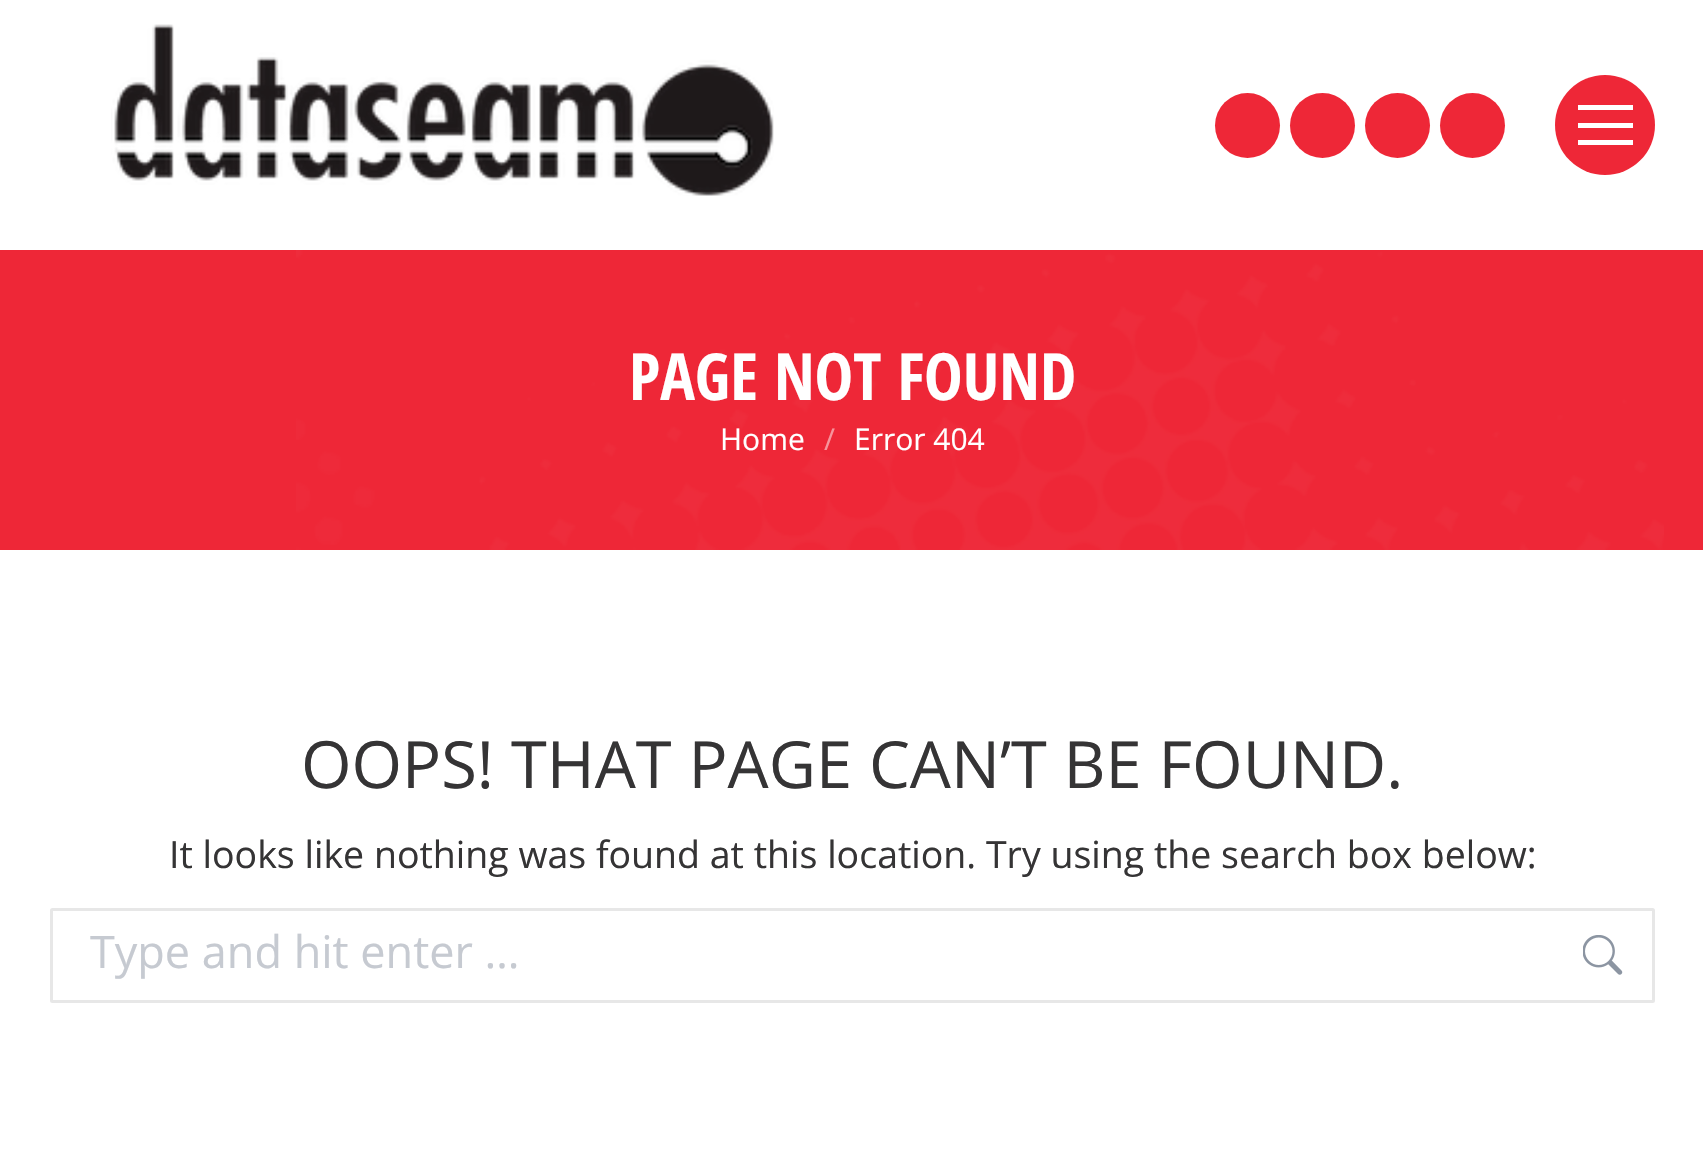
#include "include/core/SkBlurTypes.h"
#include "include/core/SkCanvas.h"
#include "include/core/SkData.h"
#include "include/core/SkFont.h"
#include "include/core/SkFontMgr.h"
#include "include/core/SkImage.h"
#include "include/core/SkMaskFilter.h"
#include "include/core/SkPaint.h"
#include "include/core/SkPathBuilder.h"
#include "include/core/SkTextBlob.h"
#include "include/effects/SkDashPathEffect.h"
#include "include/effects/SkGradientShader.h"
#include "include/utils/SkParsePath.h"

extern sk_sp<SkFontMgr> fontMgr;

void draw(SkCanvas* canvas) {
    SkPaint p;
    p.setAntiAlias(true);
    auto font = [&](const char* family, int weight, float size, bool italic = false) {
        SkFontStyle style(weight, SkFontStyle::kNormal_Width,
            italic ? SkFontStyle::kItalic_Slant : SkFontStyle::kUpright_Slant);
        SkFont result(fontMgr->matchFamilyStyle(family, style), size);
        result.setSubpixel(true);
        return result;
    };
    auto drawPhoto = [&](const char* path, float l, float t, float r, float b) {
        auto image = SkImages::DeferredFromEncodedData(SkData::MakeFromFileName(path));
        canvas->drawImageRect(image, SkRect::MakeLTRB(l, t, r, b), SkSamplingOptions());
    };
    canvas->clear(0xFFFFFFFF);
    drawPhoto("media/1.png", 111, 24, 774, 196);
    p.setColor(0xFFEE2737);
    canvas->drawCircle(1247.5f, 125.5f, 32.5f, p);
    canvas->drawCircle(1322.5f, 125.5f, 32.5f, p);
    canvas->drawCircle(1397.5f, 125.5f, 32.5f, p);
    canvas->drawCircle(1472.5f, 125.5f, 32.5f, p);
    canvas->drawCircle(1605, 125, 50, p);
    {
        const struct { float l, t, r, b; SkColor color; } items[] = {
            {1578, 105, 1633, 110, 0xFFFFFFFF},
            {1578, 123, 1633, 128, 0xFFFFFFFF},
            {1578, 140, 1633, 145, 0xFFFFFFFF},
            {0, 250, 1703, 550, 0xFFEE2737},
        };
        for (auto [l, t, r, b, color] : items) {
            p.setColor(color);
            canvas->drawRect(SkRect::MakeLTRB(l, t, r, b), p);
        }
    }
    drawPhoto("media/2.png", 296, 250, 1664, 550);
    auto font1 = font("Open Sans Condensed", 700, 65);
    p.setColor(0xFFFFFFFF);
    canvas->drawString("PAGE NOT FOUND", 629, 400, font1, p);
    auto font2 = font("Open Sans", 400, 30);
    canvas->drawString("Home", 720, 450, font2, p);
    p.setColor(0xFFF7939B);
    canvas->drawString("/", 824, 450, font2, p);
    p.setColor(0xFFFFFFFF);
    canvas->drawString("Error 404", 854, 450, font2, p);
    auto font3 = font("Open Sans", 400, 65);
    p.setColor(0xFF353435);
    canvas->drawString("OOPS! THAT PAGE CAN’T BE FOUND.", 301, 788, font3, p);
    auto font4 = font("Open Sans", 400, 37.5f);
    canvas->drawString("It looks like nothing was found at this location. Try using the search box below:", 169, 868, font4, p);
    p.setStyle(SkPaint::kStroke_Style);
    p.setStrokeWidth(3);
    p.setColor(0xFFE7E7E7);
    canvas->drawRoundRect(SkRect::MakeLTRB(51.5f, 909.5f, 1653.5f, 1001.5f), 1, 1, p);
    auto font5 = font("Open Sans", 400, 45);
    p.setStyle(SkPaint::kFill_Style);
    p.setColor(0xFFC6CAD1);
    canvas->drawString("Type and hit enter …", 90, 968, font5, p);
    drawPhoto("media/3.png", 1583, 935, 1623, 975);
}
